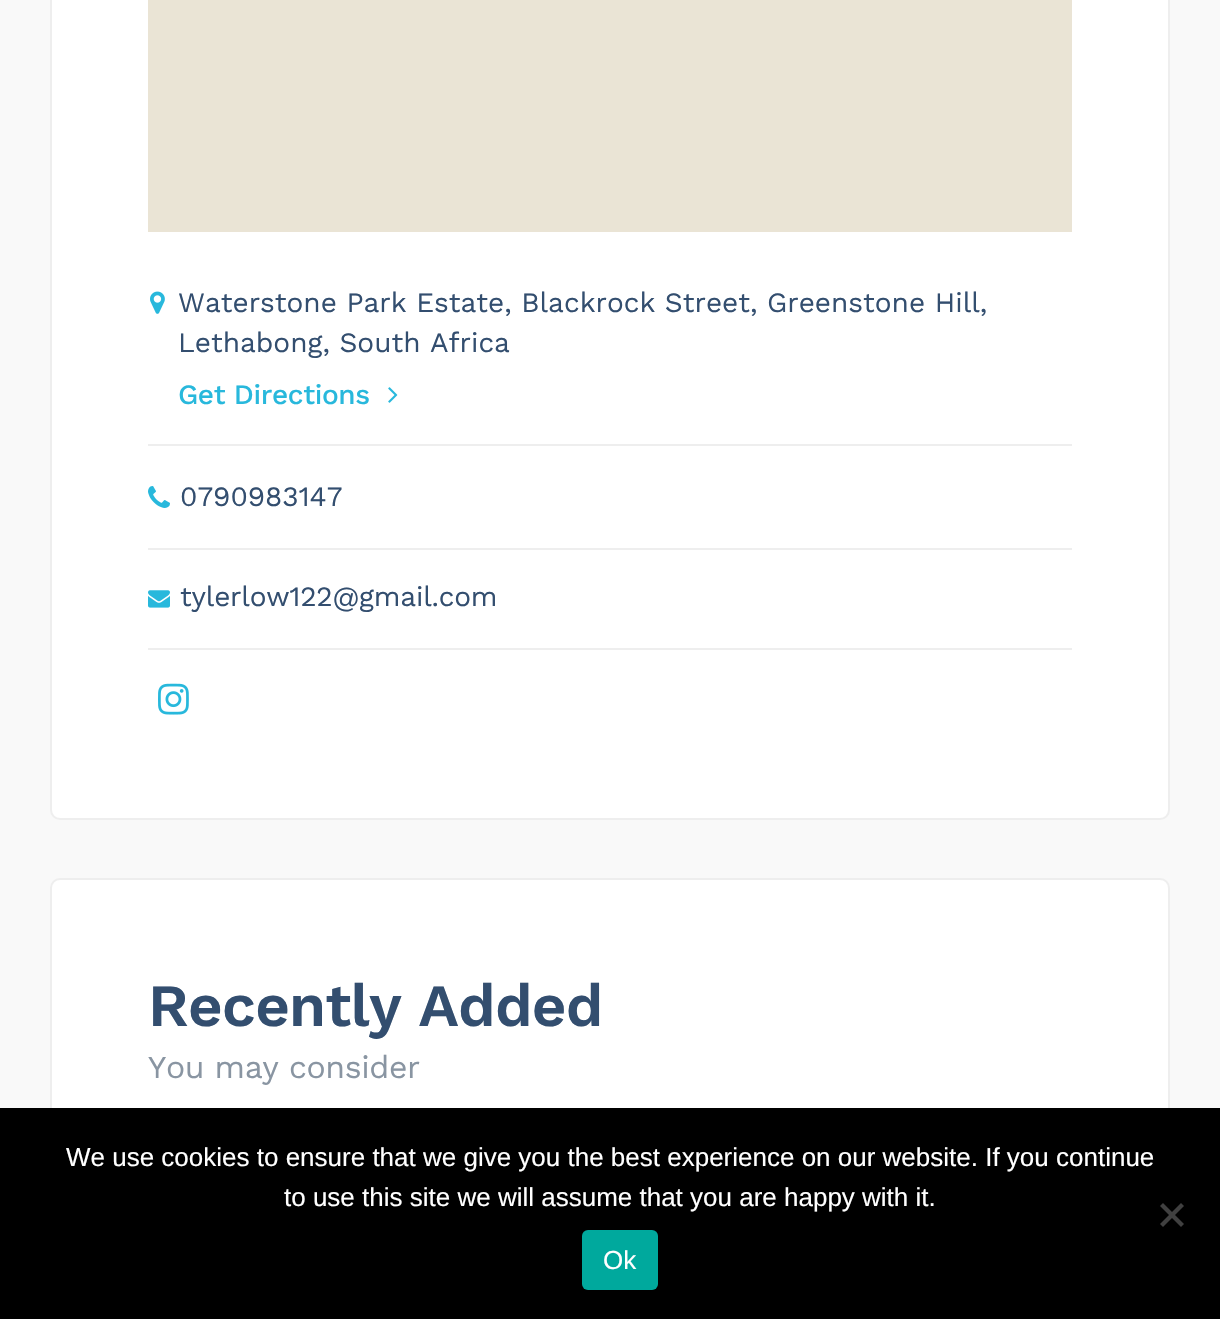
#include "include/core/SkBlurTypes.h"
#include "include/core/SkCanvas.h"
#include "include/core/SkData.h"
#include "include/core/SkFont.h"
#include "include/core/SkFontMgr.h"
#include "include/core/SkImage.h"
#include "include/core/SkMaskFilter.h"
#include "include/core/SkPaint.h"
#include "include/core/SkPathBuilder.h"
#include "include/core/SkTextBlob.h"
#include "include/effects/SkDashPathEffect.h"
#include "include/effects/SkGradientShader.h"
#include "include/utils/SkParsePath.h"

extern sk_sp<SkFontMgr> fontMgr;

void draw(SkCanvas* canvas) {
    SkPaint p;
    p.setAntiAlias(true);
    auto font = [&](const char* family, int weight, float size, bool italic = false) {
        SkFontStyle style(weight, SkFontStyle::kNormal_Width,
            italic ? SkFontStyle::kItalic_Slant : SkFontStyle::kUpright_Slant);
        SkFont result(fontMgr->matchFamilyStyle(family, style), size);
        result.setSubpixel(true);
        return result;
    };
    auto drawTracked = [&](const char* s, float x, float y, const SkFont& font, const SkPaint& ink, float letter, float word) {
        std::vector<SkGlyphID> glyphs(font.countText(s, strlen(s), SkTextEncoding::kUTF8));
        std::vector<float> xs(glyphs.size());
        font.textToGlyphs(s, strlen(s), SkTextEncoding::kUTF8, glyphs);
        font.getXPos(glyphs, xs, x);
        float extra = 0;
        for (size_t i = 0; i < glyphs.size(); i++) {
            xs[i] += extra;
            extra += letter + word * (glyphs[i] == font.unicharToGlyph(' '));
        }
        canvas->drawTextBlob(SkTextBlob::MakeFromPosHGlyphs(glyphs, xs, y, font), 0, 0, ink);
    };
    auto drawPhoto = [&](const char* path, float l, float t, float r, float b) {
        auto image = SkImages::DeferredFromEncodedData(SkData::MakeFromFileName(path));
        canvas->drawImageRect(image, SkRect::MakeLTRB(l, t, r, b), SkSamplingOptions());
    };
    canvas->clear(0xFFF9F9F9);
    p.setColor(0xFFFFFFFF);
    canvas->drawRoundRect(SkRect::MakeLTRB(51, -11, 1169, 819), 9, 9, p);
    p.setStyle(SkPaint::kStroke_Style);
    p.setStrokeWidth(2);
    p.setColor(0xFFEEEEEE);
    canvas->drawRoundRect(SkRect::MakeLTRB(51, -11, 1169, 819), 9, 9, p);
    p.setStyle(SkPaint::kFill_Style);
    p.setColor(0xFFEAE4D5);
    canvas->drawRect(SkRect::MakeLTRB(148, 0, 1072, 232), p);
    p.setColor(0xFFEEEEEE);
    canvas->drawRect(SkRect::MakeLTRB(148, 444, 1072, 446), p);
    drawPhoto("media/1.png", 150, 291, 165, 314);
    auto font1 = font("Work Sans", 400, 28);
    p.setColor(0xFF334E6F);
    canvas->drawString("Waterstone Park Estate, Blackrock Street, Greenstone Hill,", 178, 312, font1, p);
    canvas->drawString("Lethabong, South Africa", 178, 352, font1, p);
    auto font2 = font("Work Sans", 500, 28);
    p.setColor(0xFF28B8DC);
    drawTracked("Get Directions", 178, 404, font2, p, -0.4f, 0);
    drawPhoto("media/2.png", 388, 387, 398, 403);
    p.setColor(0xFFEEEEEE);
    canvas->drawRect(SkRect::MakeLTRB(148, 548, 1072, 550), p);
    drawPhoto("media/3.png", 148, 486, 170, 508);
    p.setColor(0xFF334E6F);
    canvas->drawString("0790983147", 180, 506, font1, p);
    p.setColor(0xFFEEEEEE);
    canvas->drawRect(SkRect::MakeLTRB(148, 648, 1072, 650), p);
    drawPhoto("media/4.png", 148, 590, 170, 608);
    p.setColor(0xFF334E6F);
    drawTracked("tylerlow122@gmail.com", 180, 606, font1, p, -0.2f, 0);
    drawPhoto("media/5.png", 158, 683, 189, 715);
    p.setColor(0xFFFFFFFF);
    canvas->drawRoundRect(SkRect::MakeLTRB(51, 879, 1169, 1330), 9, 9, p);
    p.setStyle(SkPaint::kStroke_Style);
    p.setColor(0xFFEEEEEE);
    canvas->drawRoundRect(SkRect::MakeLTRB(51, 879, 1169, 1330), 9, 9, p);
    auto font3 = font("Work Sans", 600, 60);
    p.setStyle(SkPaint::kFill_Style);
    p.setColor(0xFF334E6F);
    drawTracked("Recently Added", 148, 1026, font3, p, -0.75f, 0);
    auto font4 = font("Work Sans", 400, 32);
    p.setColor(0xFF8995A2);
    drawTracked("You may consider", 148, 1078, font4, p, -0.4f, 0);
    p.setColor(0xFF000000);
    canvas->drawRect(SkRect::MakeLTRB(0, 1108, 1220, 1319), p);
    auto font5 = font("Liberation Sans", 400, 26);
    p.setColor(0xFFFFFFFF);
    canvas->drawString("We use cookies to ensure that we give you the best experience on our website. If you continue", 66, 1166, font5, p);
    canvas->drawString("to use this site we will assume that you are happy with it.", 284, 1206, font5, p);
    p.setColor(0xFF404040);
    canvas->drawPath(SkPathBuilder().moveTo(1181, 1203).lineTo(1184, 1206).lineTo(1163, 1227).lineTo(1160, 1224).close().detach(), p);
    canvas->drawPath(SkPathBuilder().moveTo(1160, 1206).lineTo(1163, 1203).lineTo(1184, 1224).lineTo(1181, 1227).close().detach(), p);
    p.setColor(0xFF00A99D);
    canvas->drawRoundRect(SkRect::MakeLTRB(582, 1230, 658, 1290), 6, 6, p);
    p.setColor(0xFFFFFFFF);
    canvas->drawString("Ok", 603, 1269, font5, p);
}
